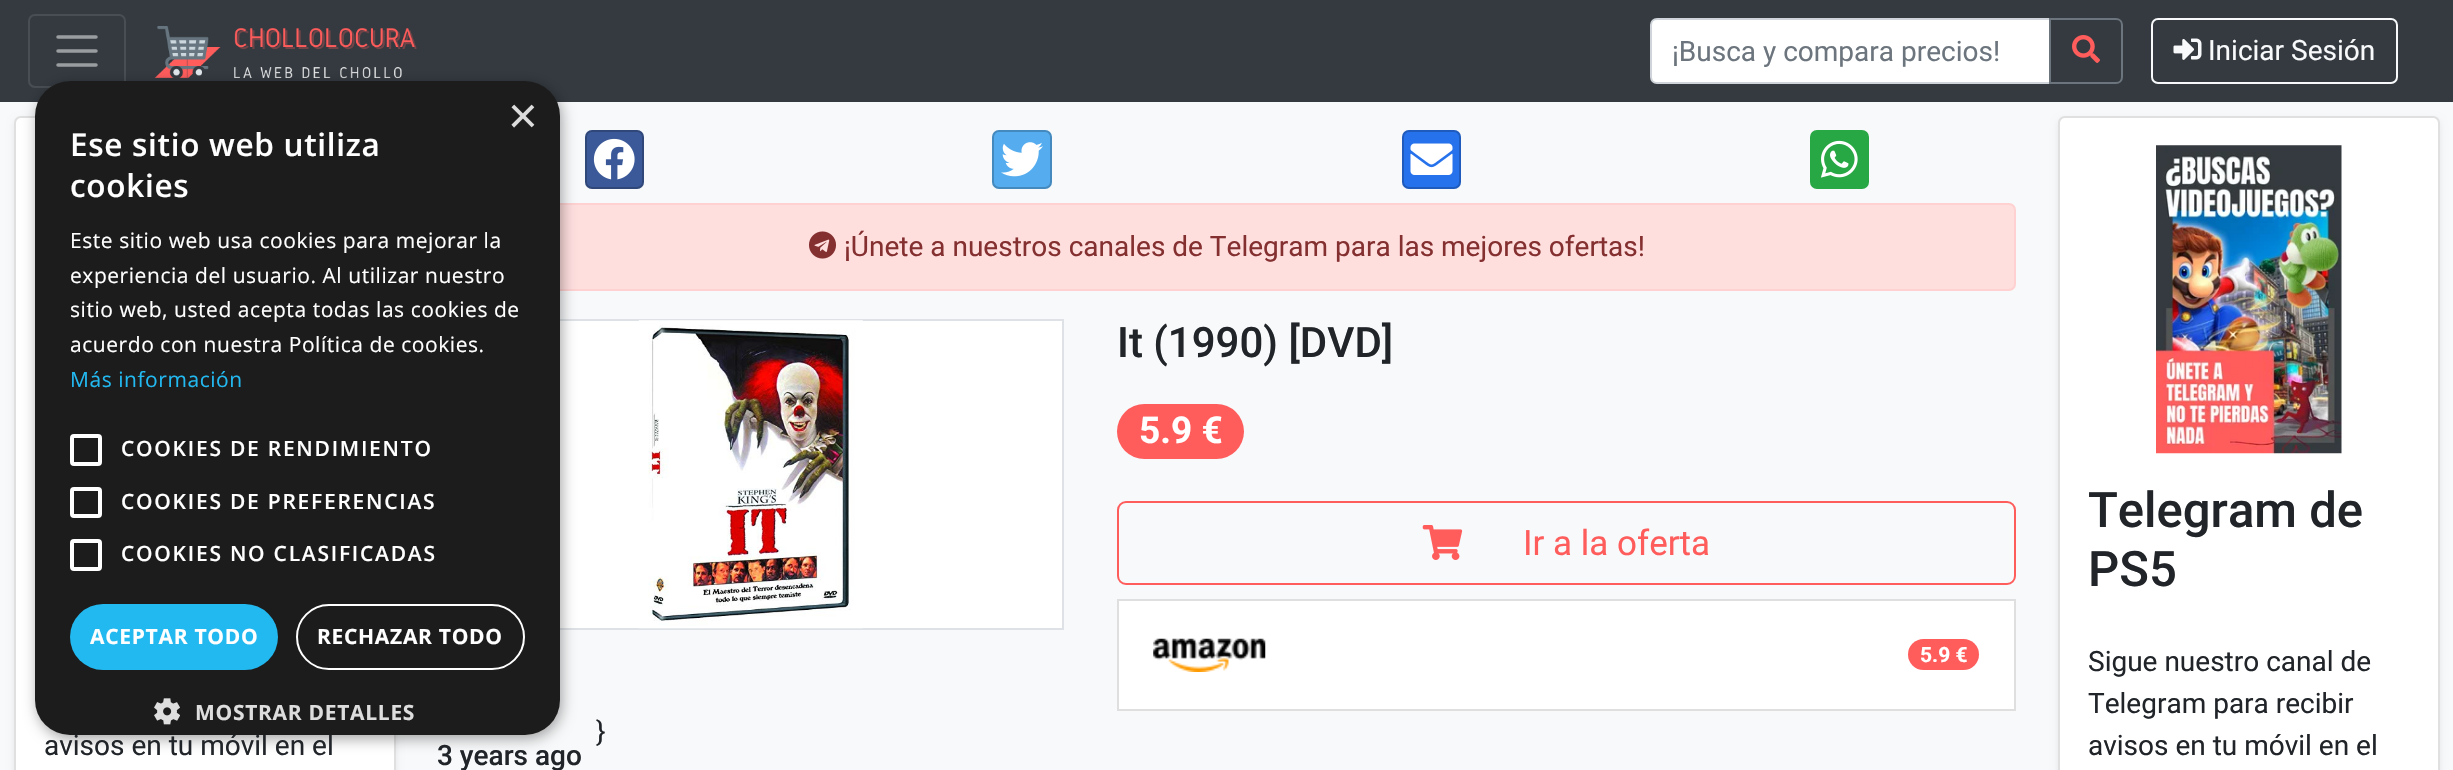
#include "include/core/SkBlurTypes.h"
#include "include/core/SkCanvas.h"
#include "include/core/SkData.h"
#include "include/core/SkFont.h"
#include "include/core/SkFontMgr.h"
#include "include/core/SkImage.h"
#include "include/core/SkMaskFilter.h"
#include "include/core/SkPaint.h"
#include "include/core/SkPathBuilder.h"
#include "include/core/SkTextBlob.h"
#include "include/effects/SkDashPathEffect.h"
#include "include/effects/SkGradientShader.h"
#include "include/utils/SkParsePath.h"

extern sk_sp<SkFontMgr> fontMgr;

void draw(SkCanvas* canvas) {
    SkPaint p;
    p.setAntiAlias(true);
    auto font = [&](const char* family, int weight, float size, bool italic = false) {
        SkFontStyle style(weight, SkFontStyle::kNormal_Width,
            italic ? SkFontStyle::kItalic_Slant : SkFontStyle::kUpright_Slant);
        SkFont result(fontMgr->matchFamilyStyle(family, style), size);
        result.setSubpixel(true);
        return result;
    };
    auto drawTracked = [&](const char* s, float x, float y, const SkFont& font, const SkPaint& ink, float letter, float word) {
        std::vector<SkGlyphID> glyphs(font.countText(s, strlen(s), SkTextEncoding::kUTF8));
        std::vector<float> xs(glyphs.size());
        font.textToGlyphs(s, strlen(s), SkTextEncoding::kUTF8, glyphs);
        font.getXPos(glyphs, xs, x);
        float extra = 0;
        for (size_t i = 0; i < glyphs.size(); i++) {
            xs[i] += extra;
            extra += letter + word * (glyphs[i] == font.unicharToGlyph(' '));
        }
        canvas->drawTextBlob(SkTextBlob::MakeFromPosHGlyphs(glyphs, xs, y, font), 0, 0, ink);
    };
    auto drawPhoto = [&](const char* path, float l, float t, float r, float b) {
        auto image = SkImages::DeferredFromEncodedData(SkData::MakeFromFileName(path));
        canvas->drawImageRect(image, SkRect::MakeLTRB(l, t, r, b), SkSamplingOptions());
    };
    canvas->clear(0xFFF8F9FA);
    p.setColor(0xFF343A40);
    canvas->drawRect(SkRect::MakeLTRB(0, 0, 2453, 102), p);
    p.setStyle(SkPaint::kStroke_Style);
    p.setStrokeWidth(2);
    p.setColor(0xFF484E53);
    canvas->drawRoundRect(SkRect::MakeLTRB(29, 15, 125, 87), 6, 6, p);
    p.setStrokeWidth(3.5f);
    p.setStrokeCap(SkPaint::kRound_Cap);
    p.setColor(0xFF9A9DA0);
    canvas->drawPath(SkPathBuilder().moveTo(58, 37).lineTo(96, 37).moveTo(58, 51).lineTo(96, 51).moveTo(58, 65).lineTo(96, 65).detach(), p);
    drawPhoto("media/1.png", 154, 26, 417, 79);
    p.setStyle(SkPaint::kFill_Style);
    p.setColor(0xFFFFFFFF);
    canvas->drawPath(SkPathBuilder().moveTo(1657, 19).lineTo(2050, 19).lineTo(2050, 83).lineTo(1657, 83).cubicTo(1653.5f, 83, 1651, 80.5f, 1651, 77).lineTo(1651, 25).cubicTo(1651, 21.5f, 1653.5f, 19, 1657, 19).close().detach(), p);
    p.setStyle(SkPaint::kStroke_Style);
    p.setStrokeWidth(2);
    p.setStrokeCap(SkPaint::kButt_Cap);
    p.setColor(0xFFCED4DA);
    canvas->drawPath(SkPathBuilder().moveTo(1657, 19).lineTo(2050, 19).lineTo(2050, 83).lineTo(1657, 83).cubicTo(1653.5f, 83, 1651, 80.5f, 1651, 77).lineTo(1651, 25).cubicTo(1651, 21.5f, 1653.5f, 19, 1657, 19).close().detach(), p);
    auto font1 = font("Roboto", 400, 28);
    p.setStyle(SkPaint::kFill_Style);
    p.setColor(0xFF6C757D);
    canvas->drawString("¡Busca y compara precios!", 1672, 61, font1, p);
    p.setStyle(SkPaint::kStroke_Style);
    canvas->drawPath(SkPathBuilder().moveTo(2050, 19).lineTo(2116, 19).cubicTo(2119.5f, 19, 2122, 21.5f, 2122, 25).lineTo(2122, 77).cubicTo(2122, 80.5f, 2119.5f, 83, 2116, 83).lineTo(2050, 83).close().detach(), p);
    drawPhoto("media/2.png", 2072, 35, 2100, 63);
    p.setColor(0xFFF8F9FA);
    canvas->drawRoundRect(SkRect::MakeLTRB(2152, 19, 2397, 83), 6, 6, p);
    drawPhoto("media/3.png", 2173, 38, 2202, 60);
    p.setStyle(SkPaint::kFill_Style);
    canvas->drawString("Iniciar Sesión", 2208, 60, font1, p);
    p.setColor(0x12000000);
    p.setMaskFilter(SkMaskFilter::MakeBlur(kNormal_SkBlurStyle, 3.5f));
    canvas->drawRoundRect(SkRect::MakeLTRB(14, 119, 396, 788), 7, 7, p);
    p.setMaskFilter(nullptr);
    p.setColor(0xFFFFFFFF);
    canvas->drawRoundRect(SkRect::MakeLTRB(14, 116, 396, 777), 7, 7, p);
    p.setStyle(SkPaint::kStroke_Style);
    p.setColor(0x1F000000);
    canvas->drawRoundRect(SkRect::MakeLTRB(15, 117, 395, 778), 6, 6, p);
    p.setStyle(SkPaint::kFill_Style);
    p.setColor(0xFFFFDEDE);
    canvas->drawRoundRect(SkRect::MakeLTRB(439, 204, 2015, 290), 6, 6, p);
    p.setStyle(SkPaint::kStroke_Style);
    p.setColor(0xFFFFD1D1);
    canvas->drawRoundRect(SkRect::MakeLTRB(439, 204, 2015, 290), 6, 6, p);
    p.setStyle(SkPaint::kFill_Style);
    p.setColor(0xFFFFFFFF);
    canvas->drawRect(SkRect::MakeLTRB(560, 321, 1062, 628), p);
    p.setStyle(SkPaint::kStroke_Style);
    p.setColor(0xFFDEE2E6);
    canvas->drawRect(SkRect::MakeLTRB(439, 320, 1063, 629), p);
    p.setStyle(SkPaint::kFill_Style);
    p.setColor(0x59000000);
    p.setMaskFilter(SkMaskFilter::MakeBlur(kNormal_SkBlurStyle, 7));
    canvas->drawRoundRect(SkRect::MakeLTRB(37, 84, 562, 739), 35, 35, p);
    p.setMaskFilter(nullptr);
    p.setColor(0xFF212529);
    canvas->drawString("avisos en tu móvil en el", 44, 755, font1, p);
    p.setColor(0xFF1C1C1C);
    canvas->drawRoundRect(SkRect::MakeLTRB(35, 81, 560, 735), 35, 35, p);
    auto font2 = font("Liberation Sans", 400, 51);
    p.setColor(0xFFDDDDDD);
    canvas->drawString("×", 508, 133, font2, p);
    auto font3 = font("Open Sans", 600, 31.5f);
    p.setColor(0xFFFFFFFF);
    drawTracked("Ese sitio web utiliza", 70, 156, font3, p, 0.7f, 0);
    drawTracked("cookies", 70, 197, font3, p, 0.7f, 0);
    auto font4 = font("Open Sans", 400, 21);
    {
        const struct { const char* s; float x, y; } items[] = {
            {"Este sitio web usa cookies para mejorar la", 70, 248},
            {"experiencia del usuario. Al utilizar nuestro", 70, 283},
            {"sitio web, usted acepta todas las cookies de", 70, 317},
            {"acuerdo con nuestra Política de cookies.", 70, 352},
        };
        for (auto [s, x, y] : items) {
            drawTracked(s, x, y, font4, p, 0.55f, 0);
        }
    }
    p.setColor(0xFF22B8F0);
    drawTracked("Más información", 70, 387, font4, p, 0.55f, 0);
    p.setStyle(SkPaint::kStroke_Style);
    p.setStrokeWidth(4);
    p.setColor(0xFFFFFFFF);
    canvas->drawRoundRect(SkRect::MakeLTRB(72, 436, 100, 464), 2, 2, p);
    auto font5 = font("Open Sans", 600, 21);
    p.setStyle(SkPaint::kFill_Style);
    drawTracked("COOKIES DE RENDIMIENTO", 121, 456, font5, p, 1.75f, 0);
    p.setStyle(SkPaint::kStroke_Style);
    canvas->drawRoundRect(SkRect::MakeLTRB(72, 489, 100, 516), 2, 2, p);
    p.setStyle(SkPaint::kFill_Style);
    drawTracked("COOKIES DE PREFERENCIAS", 121, 509, font5, p, 1.75f, 0);
    p.setStyle(SkPaint::kStroke_Style);
    canvas->drawRoundRect(SkRect::MakeLTRB(72, 541, 100, 569), 2, 2, p);
    p.setStyle(SkPaint::kFill_Style);
    drawTracked("COOKIES NO CLASIFICADAS", 121, 561, font5, p, 1.75f, 0);
    p.setColor(0xFF22B8F0);
    canvas->drawRoundRect(SkRect::MakeLTRB(70, 604, 278, 670), 33, 33, p);
    auto font6 = font("Open Sans", 700, 21);
    p.setColor(0xFFFFFFFF);
    drawTracked("ACEPTAR TODO", 90, 644, font6, p, 0.7f, 0);
    p.setStyle(SkPaint::kStroke_Style);
    p.setStrokeWidth(2);
    canvas->drawRoundRect(SkRect::MakeLTRB(297, 605, 524, 669), 32, 32, p);
    p.setStyle(SkPaint::kFill_Style);
    drawTracked("RECHAZAR TODO", 317, 644, font6, p, 0.7f, 0);
    drawPhoto("media/4.png", 154, 698, 180, 725);
    p.setColor(0xFFDDDDDD);
    drawTracked("MOSTRAR DETALLES", 195, 720, font6, p, 0.7f, 0);
    p.setColor(0xFF3B5998);
    canvas->drawRoundRect(SkRect::MakeLTRB(585, 130, 644, 189), 7, 7, p);
    p.setStyle(SkPaint::kStroke_Style);
    p.setColor(0x33000000);
    canvas->drawRoundRect(SkRect::MakeLTRB(586, 131, 643, 188), 6, 6, p);
    drawPhoto("media/5.png", 593, 138, 635, 180);
    p.setStyle(SkPaint::kFill_Style);
    p.setColor(0xFF55ACEE);
    canvas->drawRoundRect(SkRect::MakeLTRB(992, 130, 1052, 189), 7, 7, p);
    p.setStyle(SkPaint::kStroke_Style);
    p.setColor(0x33000000);
    canvas->drawRoundRect(SkRect::MakeLTRB(993, 131, 1051, 188), 6, 6, p);
    drawPhoto("media/6.png", 1001, 142, 1043, 177);
    p.setStyle(SkPaint::kFill_Style);
    p.setColor(0xFF2672EC);
    canvas->drawRoundRect(SkRect::MakeLTRB(1402, 130, 1461, 189), 7, 7, p);
    p.setStyle(SkPaint::kStroke_Style);
    p.setColor(0x33000000);
    canvas->drawRoundRect(SkRect::MakeLTRB(1403, 131, 1460, 188), 6, 6, p);
    drawPhoto("media/7.png", 1410, 143, 1453, 175);
    p.setStyle(SkPaint::kFill_Style);
    p.setColor(0xFF28A745);
    canvas->drawRoundRect(SkRect::MakeLTRB(1810, 130, 1869, 189), 7, 7, p);
    drawPhoto("media/8.png", 1820, 140, 1858, 178);
    drawPhoto("media/9.png", 809, 231, 836, 259);
    p.setColor(0xFF853030);
    canvas->drawString("¡Únete a nuestros canales de Telegram para las mejores ofertas!", 844, 256, font1, p);
    drawPhoto("media/10.png", 638, 320, 863, 629);
    auto font7 = font("Roboto", 500, 42);
    p.setColor(0xFF212529);
    canvas->drawString("It (1990) [DVD]", 1117, 357, font7, p);
    p.setColor(0xFFFF5C5C);
    canvas->drawRoundRect(SkRect::MakeLTRB(1117, 404, 1244, 459), 27.5f, 27.5f, p);
    auto font8 = font("Roboto", 700, 37);
    p.setColor(0xFFFFFFFF);
    canvas->drawString("5.9 €", 1139, 443, font8, p);
    p.setStyle(SkPaint::kStroke_Style);
    p.setColor(0xFFFF5C5C);
    canvas->drawRoundRect(SkRect::MakeLTRB(1118, 502, 2015, 584), 8, 8, p);
    drawPhoto("media/11.png", 1422, 525, 1463, 560);
    auto font9 = font("Roboto", 400, 35);
    p.setStyle(SkPaint::kFill_Style);
    canvas->drawString("Ir a la oferta", 1523, 555, font9, p);
    p.setColor(0xFFFFFFFF);
    canvas->drawRect(SkRect::MakeLTRB(1118, 600, 2015, 710), p);
    p.setStyle(SkPaint::kStroke_Style);
    p.setColor(0xFFDFDFDF);
    canvas->drawRect(SkRect::MakeLTRB(1118, 600, 2015, 710), p);
    drawPhoto("media/12.png", 1153, 638, 1266, 672);
    p.setStyle(SkPaint::kFill_Style);
    p.setColor(0xFFFF5C5C);
    canvas->drawRoundRect(SkRect::MakeLTRB(1908, 639, 1979, 670), 15.5f, 15.5f, p);
    auto font10 = font("Roboto", 700, 21);
    p.setColor(0xFFFFFFFF);
    canvas->drawString("5.9 €", 1920, 662, font10, p);
    p.setColor(0xFF212529);
    canvas->drawString("}", 596, 741, font1, p);
    auto font11 = font("Roboto", 500, 28);
    canvas->drawString("3 years ago", 437, 765, font11, p);
    p.setColor(0x12000000);
    p.setMaskFilter(SkMaskFilter::MakeBlur(kNormal_SkBlurStyle, 3.5f));
    canvas->drawRoundRect(SkRect::MakeLTRB(2058, 119, 2440, 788), 7, 7, p);
    p.setMaskFilter(nullptr);
    p.setColor(0xFFFFFFFF);
    canvas->drawRoundRect(SkRect::MakeLTRB(2058, 116, 2440, 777), 7, 7, p);
    p.setStyle(SkPaint::kStroke_Style);
    p.setColor(0x1F000000);
    canvas->drawRoundRect(SkRect::MakeLTRB(2059, 117, 2439, 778), 6, 6, p);
    drawPhoto("media/13.png", 2156, 145, 2342, 454);
    auto font12 = font("Roboto", 500, 49);
    p.setStyle(SkPaint::kFill_Style);
    p.setColor(0xFF212529);
    canvas->drawString("Telegram de", 2088, 527, font12, p);
    canvas->drawString("PS5", 2088, 586, font12, p);
    {
        const struct { const char* s; float x, y; } items[] = {
            {"Sigue nuestro canal de", 2088, 671},
            {"Telegram para recibir", 2088, 713},
            {"avisos en tu móvil en el", 2088, 755},
        };
        for (auto [s, x, y] : items) {
            canvas->drawString(s, x, y, font1, p);
        }
    }
}
